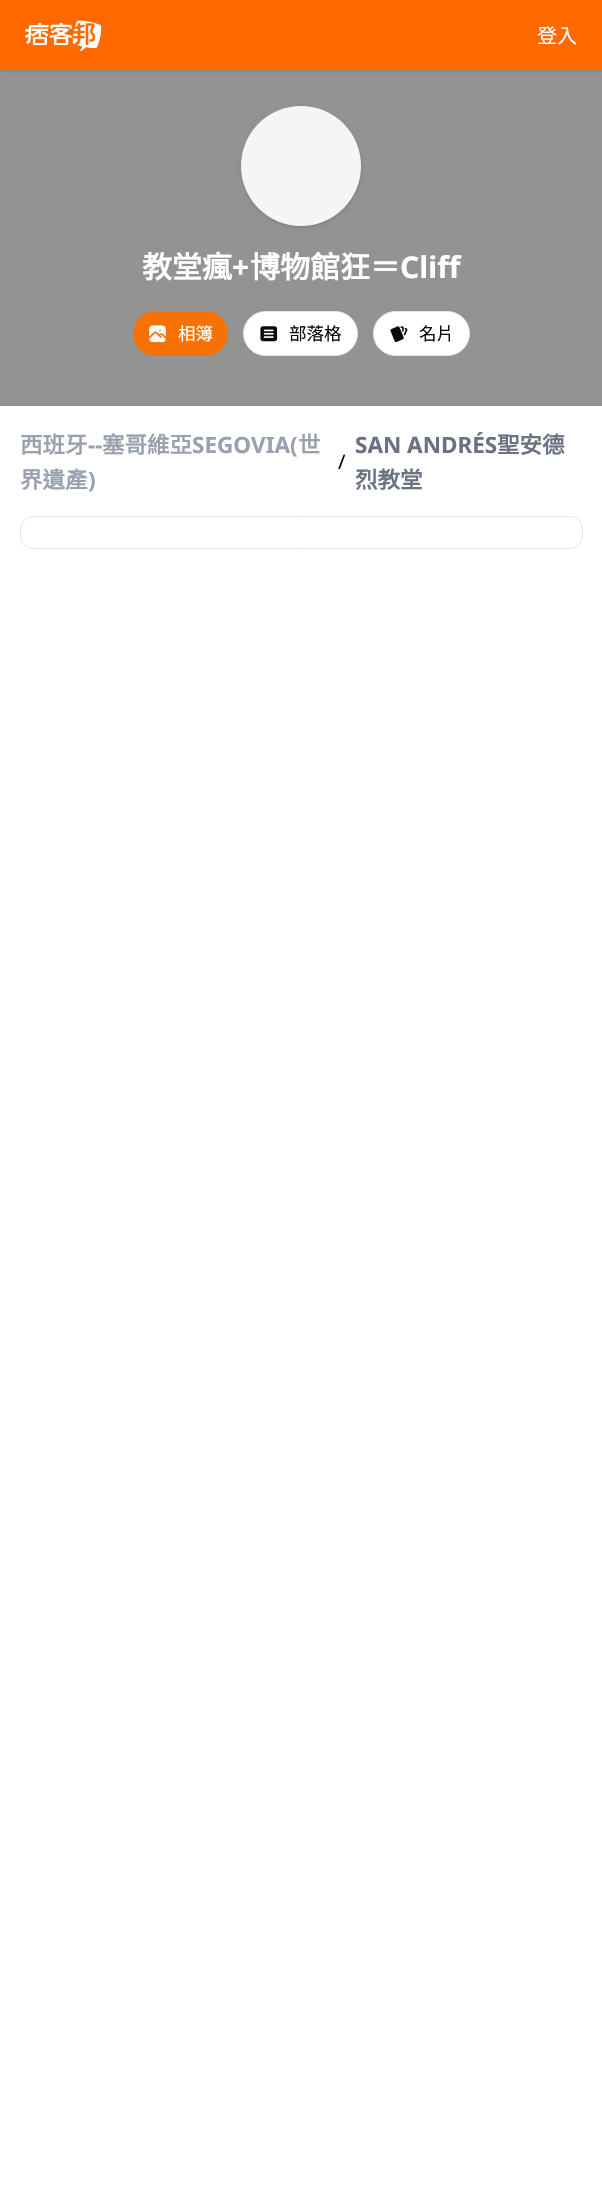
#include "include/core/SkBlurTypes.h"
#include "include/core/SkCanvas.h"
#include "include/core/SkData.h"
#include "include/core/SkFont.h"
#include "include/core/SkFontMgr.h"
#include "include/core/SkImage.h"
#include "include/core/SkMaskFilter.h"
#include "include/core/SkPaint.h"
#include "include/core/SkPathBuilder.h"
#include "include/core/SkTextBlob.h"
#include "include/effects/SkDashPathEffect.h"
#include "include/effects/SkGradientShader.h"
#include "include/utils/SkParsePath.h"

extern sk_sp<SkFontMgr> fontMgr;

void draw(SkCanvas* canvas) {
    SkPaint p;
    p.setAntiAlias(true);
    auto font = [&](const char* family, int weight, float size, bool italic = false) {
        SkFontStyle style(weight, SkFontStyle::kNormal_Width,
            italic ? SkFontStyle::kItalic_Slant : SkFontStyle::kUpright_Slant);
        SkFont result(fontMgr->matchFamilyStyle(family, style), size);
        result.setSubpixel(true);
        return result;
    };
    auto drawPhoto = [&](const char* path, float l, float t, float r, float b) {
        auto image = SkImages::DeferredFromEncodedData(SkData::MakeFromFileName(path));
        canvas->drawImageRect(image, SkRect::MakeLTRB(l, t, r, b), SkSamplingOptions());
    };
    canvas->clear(0xFFFFFFFF);
    p.setColor(0xFF939393);
    canvas->drawRect(SkRect::MakeLTRB(0, 70, 602, 406), p);
    p.setColor(0x1A000000);
    p.setMaskFilter(SkMaskFilter::MakeBlur(kNormal_SkBlurStyle, 1));
    canvas->drawRect(SkRect::MakeLTRB(1, 3, 601, 70), p);
    p.setMaskFilter(nullptr);
    p.setMaskFilter(SkMaskFilter::MakeBlur(kNormal_SkBlurStyle, 2));
    canvas->drawRect(SkRect::MakeLTRB(0, 1, 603, 71), p);
    p.setMaskFilter(nullptr);
    p.setColor(0xFFFF6900);
    canvas->drawRect(SkRect::MakeLTRB(0, 0, 602, 70), p);
    drawPhoto("media/1.png", 25, 20, 102, 51);
    auto font1 = font("Noto Sans CJK TC", 400, 20);
    p.setColor(0xFFFFFFFF);
    canvas->drawString("登入", 537, 43, font1, p);
    p.setColor(0x1A000000);
    p.setMaskFilter(SkMaskFilter::MakeBlur(kNormal_SkBlurStyle, 1));
    canvas->drawRoundRect(SkRect::MakeLTRB(243, 109, 360, 226), 58.5f, 58.5f, p);
    p.setMaskFilter(nullptr);
    p.setMaskFilter(SkMaskFilter::MakeBlur(kNormal_SkBlurStyle, 2));
    canvas->drawRoundRect(SkRect::MakeLTRB(241, 108, 361, 228), 60, 60, p);
    p.setMaskFilter(nullptr);
    p.setColor(0xFFF5F5F5);
    canvas->drawCircle(301, 166, 60, p);
    auto font2 = font("Noto Sans CJK TC", 700, 30);
    p.setColor(0xFFFFFFFF);
    canvas->drawString("教堂瘋", 142, 278, font2, p);
    auto font3 = font("Noto Sans", 700, 30);
    canvas->drawString("+", 232, 278, font3, p);
    canvas->drawString("博物館狂＝", 250, 278, font2, p);
    canvas->drawString("Cliff", 400, 278, font3, p);
    p.setColor(0xFFF87103);
    canvas->drawRoundRect(SkRect::MakeLTRB(133, 311, 228, 356), 22.5f, 22.5f, p);
    drawPhoto("media/2.png", 149, 325, 166, 343);
    auto font4 = font("Noto Sans CJK TC", 400, 17.5f);
    p.setColor(0xFFFFFFFF);
    canvas->drawString("相簿", 178, 340, font4, p);
    canvas->drawRoundRect(SkRect::MakeLTRB(243.5f, 311.5f, 357.5f, 355.5f), 22, 22, p);
    p.setStyle(SkPaint::kStroke_Style);
    p.setStrokeWidth(1);
    p.setColor(0xFFE5E5E5);
    canvas->drawRoundRect(SkRect::MakeLTRB(243.5f, 311.5f, 357.5f, 355.5f), 22, 22, p);
    drawPhoto("media/3.png", 260, 326, 278, 342);
    p.setStyle(SkPaint::kFill_Style);
    p.setColor(0xFF0A0A0A);
    canvas->drawString("部落格", 289, 340, font4, p);
    p.setColor(0xFFFFFFFF);
    canvas->drawRoundRect(SkRect::MakeLTRB(373.5f, 311.5f, 469.5f, 355.5f), 22, 22, p);
    p.setStyle(SkPaint::kStroke_Style);
    p.setColor(0xFFE5E5E5);
    canvas->drawRoundRect(SkRect::MakeLTRB(373.5f, 311.5f, 469.5f, 355.5f), 22, 22, p);
    drawPhoto("media/4.png", 390, 326, 408, 343);
    p.setStyle(SkPaint::kFill_Style);
    p.setColor(0xFF0A0A0A);
    canvas->drawString("名片", 419, 340, font4, p);
    auto font5 = font("Noto Sans CJK TC", 700, 22.5f);
    p.setColor(0xFF99A1AF);
    canvas->drawString("西班牙", 20, 453, font5, p);
    auto font6 = font("Noto Sans", 700, 22.5f);
    canvas->drawString("--", 88, 453, font6, p);
    canvas->drawString("塞哥維亞", 102, 453, font5, p);
    canvas->drawString("SEGOVIA(", 192, 453, font6, p);
    canvas->drawString("世", 298, 453, font5, p);
    canvas->drawString("界遺產", 20, 488, font5, p);
    canvas->drawString(")", 88, 488, font6, p);
    auto font7 = font("Noto Sans", 400, 20);
    p.setColor(0xFF0A0A0A);
    canvas->drawString("/", 338, 469, font7, p);
    p.setColor(0xFF6A7282);
    canvas->drawString("SAN ANDRÉS", 355, 453, font6, p);
    canvas->drawString("聖安德", 497, 453, font5, p);
    canvas->drawString("烈教堂", 355, 488, font5, p);
    p.setStyle(SkPaint::kStroke_Style);
    p.setColor(0xFFE5E5E5);
    canvas->drawRoundRect(SkRect::MakeLTRB(20.5f, 516.5f, 582.5f, 548.5f), 12.5f, 12.5f, p);
}
